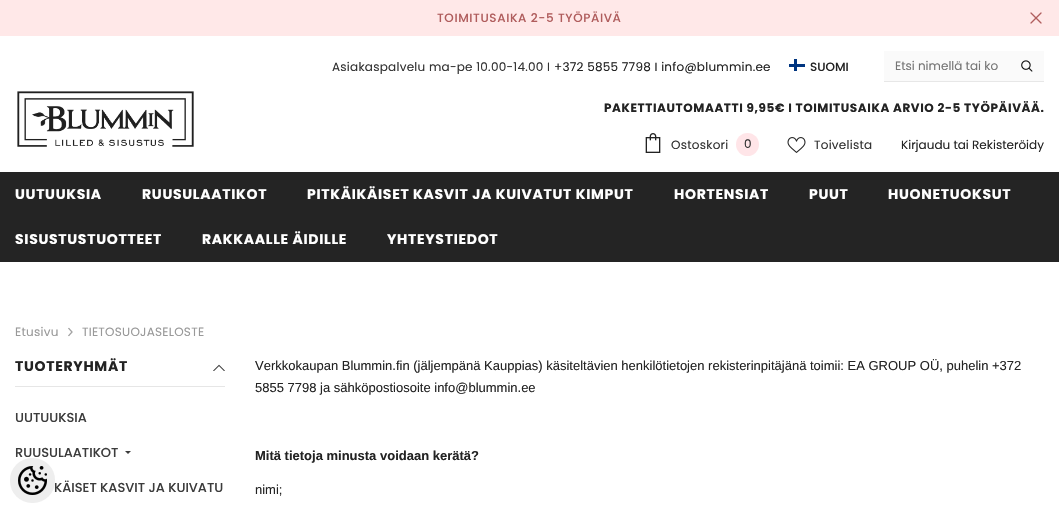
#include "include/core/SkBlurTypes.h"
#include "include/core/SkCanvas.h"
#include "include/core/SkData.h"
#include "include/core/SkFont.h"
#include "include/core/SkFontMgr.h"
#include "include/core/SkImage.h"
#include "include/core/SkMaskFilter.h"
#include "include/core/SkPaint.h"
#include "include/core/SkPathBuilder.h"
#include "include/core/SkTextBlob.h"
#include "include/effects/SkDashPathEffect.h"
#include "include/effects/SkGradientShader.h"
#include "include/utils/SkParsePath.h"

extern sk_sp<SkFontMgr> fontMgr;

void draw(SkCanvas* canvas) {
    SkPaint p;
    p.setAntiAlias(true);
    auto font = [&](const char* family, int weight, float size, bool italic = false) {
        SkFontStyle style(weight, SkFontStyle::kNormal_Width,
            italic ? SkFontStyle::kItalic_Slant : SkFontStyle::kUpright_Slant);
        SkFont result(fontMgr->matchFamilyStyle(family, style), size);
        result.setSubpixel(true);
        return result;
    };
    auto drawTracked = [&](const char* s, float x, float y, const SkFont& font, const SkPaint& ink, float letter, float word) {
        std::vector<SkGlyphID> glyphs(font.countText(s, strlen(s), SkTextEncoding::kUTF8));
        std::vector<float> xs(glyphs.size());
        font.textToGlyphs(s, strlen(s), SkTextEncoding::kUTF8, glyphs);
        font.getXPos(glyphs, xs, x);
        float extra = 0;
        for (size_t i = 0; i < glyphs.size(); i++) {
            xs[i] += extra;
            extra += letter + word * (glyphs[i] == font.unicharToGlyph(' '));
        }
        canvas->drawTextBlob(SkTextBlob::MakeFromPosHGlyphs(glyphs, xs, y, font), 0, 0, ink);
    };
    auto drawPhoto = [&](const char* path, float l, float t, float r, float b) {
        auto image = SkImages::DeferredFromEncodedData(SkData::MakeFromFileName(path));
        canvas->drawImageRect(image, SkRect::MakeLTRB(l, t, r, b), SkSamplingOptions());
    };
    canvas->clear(0xFFFFFFFF);
    p.setColor(0xFFFFE8E8);
    canvas->drawRect(SkRect::MakeLTRB(0, 0, 1059, 36), p);
    auto font1 = font("Poppins", 500, 12);
    p.setColor(0xFFB05D5D);
    drawTracked("TOIMITUSAIKA 2-5 TYÖPÄIVÄ", 437, 22, font1, p, 0.6f, 0);
    drawPhoto("media/1.png", 1030, 12, 1042, 24);
    drawPhoto("media/2.png", 17, 91, 194, 147);
    auto font2 = font("Poppins", 400, 12);
    p.setColor(0xFF323232);
    drawTracked("Asiakaspalvelu ma-pe 10.00-14.00 I", 332, 71, font2, p, 0.25f, 0);
    p.setColor(0xFF232323);
    drawTracked("+372 5855 7798 I info@blummin.ee", 554, 71, font2, p, 0.25f, 0);
    p.setColor(0xFF003580);
    canvas->drawRect(SkRect::MakeLTRB(789, 64, 805, 67), p);
    canvas->drawRect(SkRect::MakeLTRB(794, 59, 797, 71), p);
    p.setColor(0xFF232323);
    canvas->drawString("SUOMI", 810, 71, font1, p);
    p.setColor(0xFFFAFAFA);
    canvas->drawRect(SkRect::MakeLTRB(884, 51, 1044, 81), p);
    p.setColor(0xFFE7E7E7);
    canvas->drawRect(SkRect::MakeLTRB(884, 81, 1044, 82), p);
    p.setColor(0xFF757575);
    canvas->drawString("Etsi nimellä tai ko", 895, 70, font2, p);
    drawPhoto("media/3.png", 1021, 60, 1033, 72);
    auto font3 = font("Poppins", 700, 12);
    p.setColor(0xFF232323);
    drawTracked("PAKETTIAUTOMAATTI 9,95€ I TOIMITUSAIKA ARVIO 2-5 TYÖPÄIVÄÄ.", 604, 112, font3, p, 0.6f, 0);
    drawPhoto("media/4.png", 645, 133, 661, 153);
    p.setColor(0xFF323232);
    drawTracked("Ostoskori", 671, 149, font2, p, 0.25f, 0);
    p.setColor(0xFFFFE5E8);
    canvas->drawCircle(747.5f, 144.5f, 11.5f, p);
    p.setColor(0xFF323232);
    drawTracked("0", 744, 148, font2, p, 0.25f, 0);
    drawPhoto("media/5.png", 787, 137, 806, 153);
    drawTracked("Toivelista", 814, 149, font2, p, 0.25f, 0);
    p.setColor(0xFF232323);
    canvas->drawString("Kirjaudu tai Rekisteröidy", 901, 149, font2, p);
    p.setColor(0xFF242424);
    canvas->drawRect(SkRect::MakeLTRB(0, 172, 1059, 262), p);
    auto font4 = font("Poppins", 700, 14);
    p.setColor(0xFFFFFFFF);
    {
        const struct { const char* s; float x, y; } items[] = {
            {"UUTUUKSIA", 15, 199},
            {"RUUSULAATIKOT", 142, 199},
            {"PITKÄIKÄISET KASVIT JA KUIVATUT KIMPUT", 307, 199},
            {"HORTENSIAT", 674, 199},
            {"PUUT", 809, 199},
            {"HUONETUOKSUT", 888, 199},
            {"SISUSTUSTUOTTEET", 15, 244},
            {"RAKKAALLE ÄIDILLE", 202, 244},
            {"YHTEYSTIEDOT", 387, 244},
        };
        for (auto [s, x, y] : items) {
            drawTracked(s, x, y, font4, p, 0.7f, 0);
        }
    }
    p.setColor(0xFF999999);
    drawTracked("Etusivu", 15, 336, font2, p, 0.25f, 0);
    drawPhoto("media/6.png", 68, 327, 73, 337);
    drawTracked("TIETOSUOJASELOSTE", 82, 336, font2, p, 0.25f, 0);
    p.setColor(0xFFE6E6E6);
    canvas->drawRect(SkRect::MakeLTRB(15, 386, 225, 387), p);
    p.setColor(0xFF232323);
    drawTracked("TUOTERYHMÄT", 15, 371, font4, p, 0.7f, 0);
    drawPhoto("media/7.png", 213, 364, 225, 371);
    auto font5 = font("Poppins", 500, 13);
    p.setColor(0xFF3C3C3C);
    canvas->drawString("UUTUUKSIA", 15, 422, font5, p);
    canvas->drawString("RUUSULAATIKOT", 15, 457, font5, p);
    canvas->drawPath(SkPathBuilder().moveTo(125, 451).lineTo(131, 451).lineTo(128, 454).close().detach(), p);
    canvas->drawString("KÄISET KASVIT JA KUIVATU", 54, 492, font5, p);
    auto font6 = font("Liberation Sans", 400, 13);
    p.setColor(0xFF232323);
    canvas->drawString("Verkkokaupan Blummin.fin (jäljempänä Kauppias) käsiteltävien henkilötietojen rekisterinpitäjänä toimii: EA GROUP OÜ, puhelin +372", 255, 370, font6, p);
    canvas->drawString("5855 7798 ja sähköpostiosoite info@blummin.ee", 255, 392, font6, p);
    auto font7 = font("Liberation Sans", 700, 13);
    canvas->drawString("Mitä tietoja minusta voidaan kerätä?", 255, 460, font7, p);
    canvas->drawString("nimi;", 255, 494, font6, p);
    p.setColor(0xFFEEEEEE);
    canvas->drawRoundRect(SkRect::MakeLTRB(10, 458, 55, 503), 22, 22, p);
    drawPhoto("media/8.png", 18, 466, 47, 495);
}
